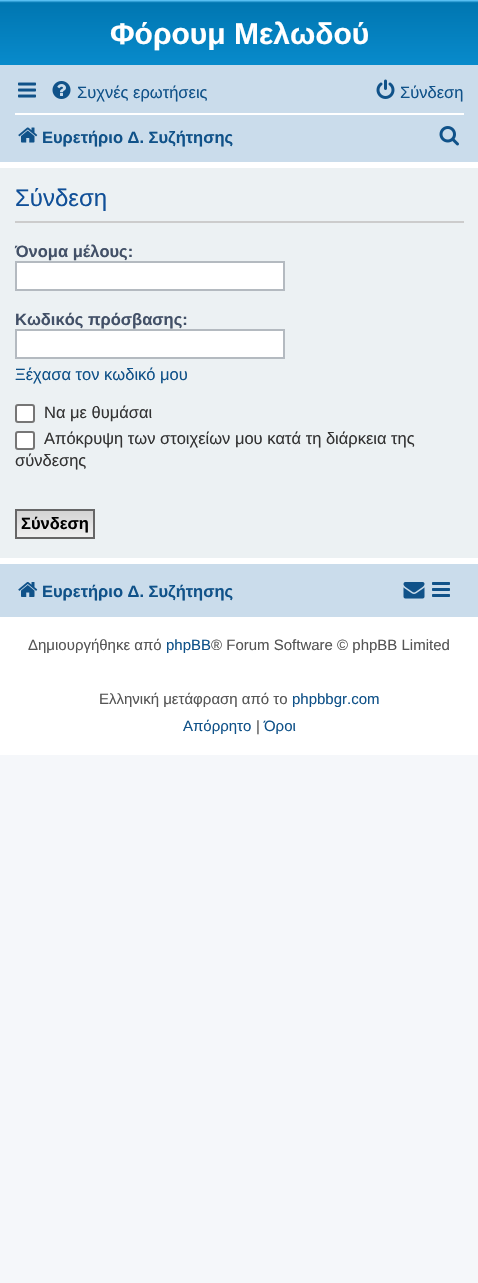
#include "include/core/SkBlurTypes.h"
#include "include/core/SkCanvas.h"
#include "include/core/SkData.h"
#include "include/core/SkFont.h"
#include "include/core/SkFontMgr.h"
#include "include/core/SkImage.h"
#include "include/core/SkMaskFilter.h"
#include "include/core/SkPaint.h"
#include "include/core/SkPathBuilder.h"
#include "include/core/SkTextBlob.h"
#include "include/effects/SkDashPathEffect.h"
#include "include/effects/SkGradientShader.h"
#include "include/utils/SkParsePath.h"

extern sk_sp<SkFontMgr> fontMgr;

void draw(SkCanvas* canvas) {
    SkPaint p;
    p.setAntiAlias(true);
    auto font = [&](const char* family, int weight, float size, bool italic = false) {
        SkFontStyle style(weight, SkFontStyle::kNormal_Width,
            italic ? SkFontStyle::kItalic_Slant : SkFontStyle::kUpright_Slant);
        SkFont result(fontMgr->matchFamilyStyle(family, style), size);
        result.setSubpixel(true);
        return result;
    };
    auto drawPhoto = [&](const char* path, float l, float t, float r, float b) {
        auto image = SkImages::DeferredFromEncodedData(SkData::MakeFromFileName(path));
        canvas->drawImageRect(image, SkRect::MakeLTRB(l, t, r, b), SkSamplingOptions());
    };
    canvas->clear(0xFFF5F7FA);
    p.setColor(0xFFFFFFFF);
    canvas->drawRect(SkRect::MakeLTRB(0, 162, 478, 755), p);
    {
        const SkColor colors[] = {0xFF6ACEFF, 0xFF0076B1, 0xFF12A3EB};
        const float stops[] = {0, 0.02f, 1};
        const SkPoint ends[] = {{239, 0}, {239, 138}};
        p.setShader(SkGradientShader::MakeLinear(ends, colors, stops, 3, SkTileMode::kClamp));
        p.setAlpha(255);
    }
    canvas->drawRect(SkRect::MakeLTRB(0, 0, 478, 65), p);
    auto font1 = font("Liberation Sans", 700, 30);
    p.setShader(nullptr);
    p.setColor(0xFFFFFFFF);
    canvas->drawString("Φόρουμ Μελωδού", 110, 44, font1, p);
    p.setColor(0xFFCADCEB);
    canvas->drawRect(SkRect::MakeLTRB(0, 65, 478, 162), p);
    drawPhoto("media/1.png", 18, 82, 36, 98);
    drawPhoto("media/2.png", 52, 81, 71, 99);
    auto font2 = font("Liberation Sans", 400, 16.5f);
    p.setColor(0xFF105289);
    canvas->drawString("Συχνές ερωτήσεις", 77, 98, font2, p);
    drawPhoto("media/3.png", 376, 79, 395, 99);
    canvas->drawString("Σύνδεση", 400, 98, font2, p);
    p.setColor(0xFFFFFFFF);
    canvas->drawRect(SkRect::MakeLTRB(15, 113, 464, 115), p);
    drawPhoto("media/4.png", 18, 127, 38, 143);
    auto font3 = font("Liberation Sans", 700, 16.5f);
    p.setColor(0xFF105289);
    canvas->drawString("Ευρετήριο Δ. Συζήτησης", 42, 143, font3, p);
    drawPhoto("media/5.png", 439, 126, 459, 146);
    p.setColor(0xFFECF1F3);
    canvas->drawRect(SkRect::MakeLTRB(0, 168, 478, 558), p);
    p.setColor(0xFFCCCCCC);
    canvas->drawRect(SkRect::MakeLTRB(15, 221, 464, 223), p);
    auto font4 = font("Liberation Sans", 400, 24);
    p.setColor(0xFF115098);
    canvas->drawString("Σύνδεση", 15, 206, font4, p);
    p.setColor(0xFF425067);
    canvas->drawString("Όνομα μέλους:", 15, 257, font3, p);
    p.setColor(0xFFFFFFFF);
    canvas->drawRect(SkRect::MakeLTRB(16, 262, 284, 290), p);
    p.setStyle(SkPaint::kStroke_Style);
    p.setStrokeWidth(2);
    p.setColor(0xFFB4BAC0);
    canvas->drawRect(SkRect::MakeLTRB(16, 262, 284, 290), p);
    p.setStyle(SkPaint::kFill_Style);
    p.setColor(0xFF425067);
    canvas->drawString("Κωδικός πρόσβασης:", 15, 325, font3, p);
    p.setColor(0xFFFFFFFF);
    canvas->drawRect(SkRect::MakeLTRB(16, 330, 284, 358), p);
    p.setStyle(SkPaint::kStroke_Style);
    p.setColor(0xFFB4BAC0);
    canvas->drawRect(SkRect::MakeLTRB(16, 330, 284, 358), p);
    p.setStyle(SkPaint::kFill_Style);
    p.setColor(0xFF105289);
    canvas->drawString("Ξέχασα τον κωδικό μου", 15, 380, font2, p);
    p.setColor(0xFFFFFFFF);
    canvas->drawRoundRect(SkRect::MakeLTRB(16, 405, 34, 422), 2, 2, p);
    p.setStyle(SkPaint::kStroke_Style);
    p.setColor(0xFF767676);
    canvas->drawRoundRect(SkRect::MakeLTRB(16, 405, 34, 422), 2, 2, p);
    p.setStyle(SkPaint::kFill_Style);
    p.setColor(0xFF333333);
    canvas->drawString("Να με θυμάσαι", 44, 418, font2, p);
    p.setColor(0xFFFFFFFF);
    canvas->drawRoundRect(SkRect::MakeLTRB(16, 432, 34, 449), 2, 2, p);
    p.setStyle(SkPaint::kStroke_Style);
    p.setColor(0xFF767676);
    canvas->drawRoundRect(SkRect::MakeLTRB(16, 432, 34, 449), 2, 2, p);
    p.setStyle(SkPaint::kFill_Style);
    p.setColor(0xFF333333);
    canvas->drawString("Απόκρυψη των στοιχείων μου κατά τη διάρκεια της", 44, 444, font2, p);
    canvas->drawString("σύνδεσης", 15, 466, font2, p);
    {
        const SkColor colors[] = {0xFFD2D2D2, 0xFFEFEFEF};
        const float stops[] = {0, 1};
        const SkPoint ends[] = {{55, 510}, {55, 537}};
        p.setShader(SkGradientShader::MakeLinear(ends, colors, stops, 2, SkTileMode::kClamp));
        p.setAlpha(255);
    }
    canvas->drawRect(SkRect::MakeLTRB(17, 511, 93, 537), p);
    p.setStyle(SkPaint::kStroke_Style);
    p.setShader(nullptr);
    p.setColor(0xFF666666);
    canvas->drawRect(SkRect::MakeLTRB(16, 510, 94, 538), p);
    p.setStyle(SkPaint::kFill_Style);
    p.setColor(0xFF000000);
    canvas->drawString("Σύνδεση", 21, 529, font3, p);
    p.setColor(0xFFCADCEB);
    canvas->drawRect(SkRect::MakeLTRB(0, 564, 478, 617), p);
    drawPhoto("media/6.png", 18, 582, 38, 597);
    p.setColor(0xFF105289);
    canvas->drawString("Ευρετήριο Δ. Συζήτησης", 42, 597, font3, p);
    drawPhoto("media/7.png", 403, 582, 425, 599);
    drawPhoto("media/8.png", 432, 582, 450, 597);
    auto font5 = font("Liberation Sans", 400, 15);
    p.setColor(0xFF555555);
    canvas->drawString("Δημιουργήθηκε από", 28, 650, font5, p);
    p.setColor(0xFF105289);
    canvas->drawString("phpBB", 166, 650, font5, p);
    p.setColor(0xFF555555);
    canvas->drawString("® Forum Software © phpBB Limited", 211, 650, font5, p);
    canvas->drawString("Ελληνική μετάφραση από το", 99, 704, font5, p);
    p.setColor(0xFF105289);
    canvas->drawString("phpbbgr.com", 292, 704, font5, p);
    canvas->drawString("Απόρρητο", 183, 731, font5, p);
    p.setColor(0xFF555555);
    canvas->drawString("|", 256, 731, font5, p);
    p.setColor(0xFF105289);
    canvas->drawString("Όροι", 264, 731, font5, p);
}
